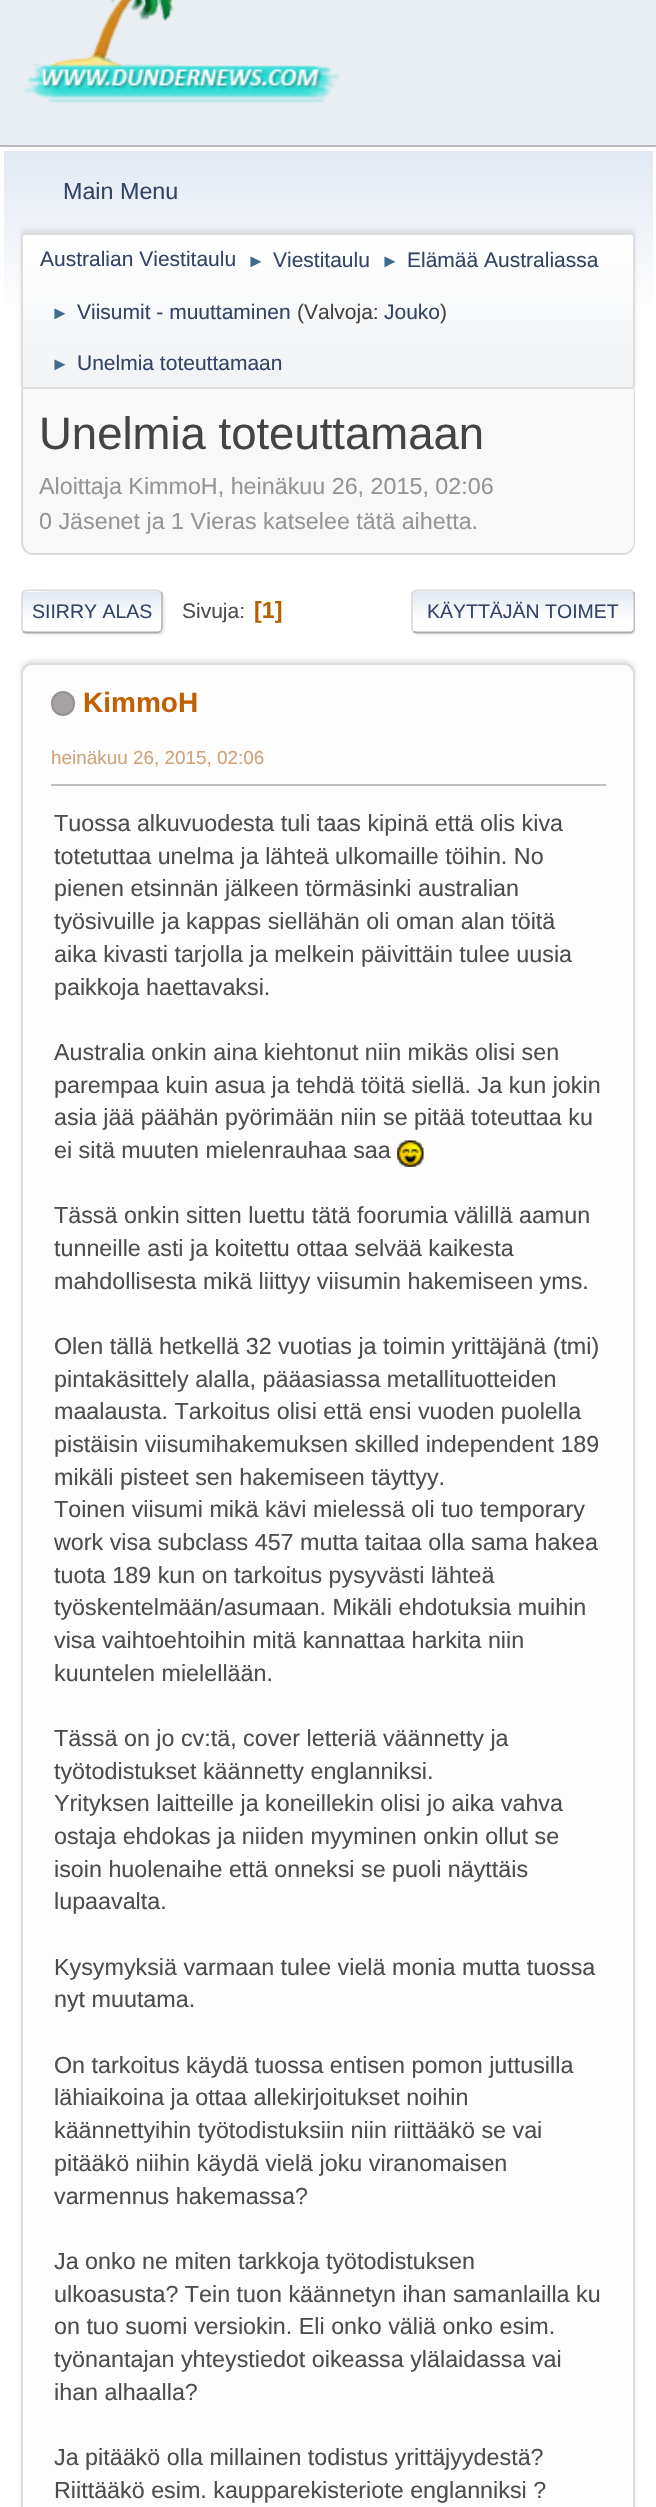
#include "include/core/SkBlurTypes.h"
#include "include/core/SkCanvas.h"
#include "include/core/SkData.h"
#include "include/core/SkFont.h"
#include "include/core/SkFontMgr.h"
#include "include/core/SkImage.h"
#include "include/core/SkMaskFilter.h"
#include "include/core/SkPaint.h"
#include "include/core/SkPathBuilder.h"
#include "include/core/SkTextBlob.h"
#include "include/effects/SkDashPathEffect.h"
#include "include/effects/SkGradientShader.h"
#include "include/utils/SkParsePath.h"

extern sk_sp<SkFontMgr> fontMgr;

void draw(SkCanvas* canvas) {
    SkPaint p;
    p.setAntiAlias(true);
    auto font = [&](const char* family, int weight, float size, bool italic = false) {
        SkFontStyle style(weight, SkFontStyle::kNormal_Width,
            italic ? SkFontStyle::kItalic_Slant : SkFontStyle::kUpright_Slant);
        SkFont result(fontMgr->matchFamilyStyle(family, style), size);
        result.setSubpixel(true);
        return result;
    };
    auto drawPhoto = [&](const char* path, float l, float t, float r, float b) {
        auto image = SkImages::DeferredFromEncodedData(SkData::MakeFromFileName(path));
        canvas->drawImageRect(image, SkRect::MakeLTRB(l, t, r, b), SkSamplingOptions());
    };
    canvas->clear(0xFFE9EEF2);
    drawPhoto("media/1.png", 24, 0, 340, 103);
    p.setColor(0xFFFFFFFF);
    canvas->drawRect(SkRect::MakeLTRB(0, 147, 656, 2507), p);
    p.setColor(0xFFB8B8B8);
    canvas->drawRect(SkRect::MakeLTRB(0, 145, 656, 147), p);
    {
        const SkColor colors[] = {0xFFE2E9F3, 0xFFFFFFFF};
        const float stops[] = {0, 0.7f};
        const SkPoint ends[] = {{328, 150}, {328, 392}};
        p.setShader(SkGradientShader::MakeLinear(ends, colors, stops, 2, SkTileMode::kClamp));
        p.setAlpha(255);
    }
    canvas->drawRect(SkRect::MakeLTRB(4, 151, 653, 305), p);
    auto font1 = font("Liberation Sans", 400, 23.3f);
    p.setShader(nullptr);
    p.setColor(0xFF334466);
    canvas->drawString("Main Menu", 63, 199, font1, p);
    p.setColor(0x14000000);
    p.setMaskFilter(SkMaskFilter::MakeBlur(kNormal_SkBlurStyle, 2));
    canvas->drawRoundRect(SkRect::MakeLTRB(21, 229, 635, 385), 4, 4, p);
    p.setMaskFilter(nullptr);
    canvas->save();
    canvas->clipPath(SkPathBuilder().moveTo(25, 233).lineTo(631, 233).cubicTo(633, 233, 635, 235, 635, 237).lineTo(635, 385).cubicTo(635, 387, 633, 389, 631, 389).lineTo(25, 389).cubicTo(23, 389, 21, 387, 21, 385).lineTo(21, 237).cubicTo(21, 235, 23, 233, 25, 233).close().detach(), true);
    {
        const SkColor colors[] = {0xFFFFFFFF, 0xFFF1F3F5};
        const float stops[] = {0, 0.95f};
        const SkPoint ends[] = {{328, 234}, {328, 387}};
        p.setShader(SkGradientShader::MakeLinear(ends, colors, stops, 2, SkTileMode::kClamp));
        p.setAlpha(255);
    }
    canvas->drawRect(SkRect::MakeLTRB(21, 235, 635, 387), p);
    canvas->restore();
    p.setStyle(SkPaint::kStroke_Style);
    p.setStrokeWidth(2);
    p.setShader(nullptr);
    p.setColor(0xFFDDDDDD);
    canvas->drawRoundRect(SkRect::MakeLTRB(22, 234, 634, 388), 3, 3, p);
    auto font2 = font("Liberation Sans", 400, 21);
    p.setStyle(SkPaint::kFill_Style);
    p.setColor(0xFF334466);
    canvas->drawString("Australian Viestitaulu", 40, 266, font2, p);
    auto font3 = font("Liberation Sans", 400, 18);
    p.setColor(0xFF3F6B8C);
    canvas->drawString("►", 247, 267, font3, p);
    p.setColor(0xFF334466);
    canvas->drawString("Viestitaulu", 273, 267, font2, p);
    p.setColor(0xFF3F6B8C);
    canvas->drawString("►", 381, 267, font3, p);
    p.setColor(0xFF334466);
    canvas->drawString("Elämää Australiassa", 407, 267, font2, p);
    p.setColor(0xFF3F6B8C);
    canvas->drawString("►", 51, 319, font3, p);
    p.setColor(0xFF334466);
    canvas->drawString("Viisumit - muuttaminen", 77, 319, font2, p);
    p.setColor(0xFF444444);
    canvas->drawString("(Valvoja:", 297, 319, font2, p);
    p.setColor(0xFF334466);
    canvas->drawString("Jouko", 384, 319, font2, p);
    p.setColor(0xFF444444);
    canvas->drawString(")", 440, 319, font2, p);
    p.setColor(0xFF3F6B8C);
    canvas->drawString("►", 51, 370, font3, p);
    p.setColor(0xFF334466);
    canvas->drawString("Unelmia toteuttamaan", 77, 370, font2, p);
    p.setColor(0xFFF8F8F8);
    canvas->drawPath(SkPathBuilder().moveTo(21, 389).lineTo(635, 389).lineTo(635, 543).cubicTo(635, 549.5f, 629.5f, 555, 623, 555).lineTo(33, 555).cubicTo(26.5f, 555, 21, 549.5f, 21, 543).close().detach(), p);
    p.setColor(0xFFDDDDDD);
    canvas->drawPath(SkPathBuilder(SkPathFillType::kEvenOdd).moveTo(21, 388).lineTo(635, 388).lineTo(635, 542).cubicTo(635, 549, 630, 555, 623, 555).lineTo(33, 555).cubicTo(26, 555, 21, 549, 21, 542).close().moveTo(23, 388).lineTo(634, 388).lineTo(634, 542).cubicTo(634, 548, 629, 553, 623, 553).lineTo(33, 553).cubicTo(27, 553, 23, 548, 23, 542).close().detach(), p);
    auto font4 = font("Liberation Sans", 400, 45.5f);
    p.setColor(0xFF444444);
    canvas->drawString("Unelmia toteuttamaan", 39, 449, font4, p);
    p.setColor(0xFF959595);
    canvas->drawString("Aloittaja KimmoH, heinäkuu 26, 2015, 02:06", 39, 494, font1, p);
    canvas->drawString("0 Jäsenet ja 1 Vieras katselee tätä aihetta.", 39, 529, font1, p);
    p.setColor(0x91DDDDDD);
    p.setMaskFilter(SkMaskFilter::MakeBlur(kNormal_SkBlurStyle, 1));
    canvas->drawRoundRect(SkRect::MakeLTRB(23, 592, 165, 635), 5, 5, p);
    p.setMaskFilter(nullptr);
    p.setColor(0xFFFFFFFF);
    canvas->drawRoundRect(SkRect::MakeLTRB(21, 590, 163, 634), 5, 5, p);
    canvas->save();
    canvas->clipPath(SkPathBuilder().moveTo(26, 590).lineTo(158, 590).cubicTo(161, 590, 163, 592, 163, 595).lineTo(163, 629).cubicTo(163, 632, 161, 634, 158, 634).lineTo(26, 634).cubicTo(23, 634, 21, 632, 21, 629).lineTo(21, 595).cubicTo(21, 592, 23, 590, 26, 590).close().detach(), true);
    {
        const SkColor colors[] = {0xFFE2E9F3, 0xFFFFFFFF};
        const float stops[] = {0, 0.7f};
        const SkPoint ends[] = {{92, 592}, {92, 632}};
        p.setShader(SkGradientShader::MakeLinear(ends, colors, stops, 2, SkTileMode::kClamp));
        p.setAlpha(255);
    }
    canvas->drawRect(SkRect::MakeLTRB(21, 592, 163, 632), p);
    {
        const SkColor colors[] = {0xFFE2E9F3, 0xFFFFFFFF};
        const float stops[] = {0, 0.7f};
        const SkPoint ends[] = {{92, 632}, {92, 672}};
        p.setShader(SkGradientShader::MakeLinear(ends, colors, stops, 2, SkTileMode::kClamp));
        p.setAlpha(255);
    }
    canvas->drawRect(SkRect::MakeLTRB(21, 632, 163, 634), p);
    canvas->restore();
    p.setStyle(SkPaint::kStroke_Style);
    p.setStrokeWidth(1.8f);
    p.setShader(nullptr);
    p.setColor(0xFFBBBBBB);
    canvas->drawPath(SkPathBuilder().moveTo(160.5f, 592).cubicTo(161.5f, 592.5f, 162, 594, 162, 595).lineTo(162, 628).cubicTo(162, 629.5f, 161.5f, 630.5f, 160.5f, 631.5f).detach(), p);
    p.setColor(0xFFAAAAAA);
    canvas->drawPath(SkPathBuilder().moveTo(160.5f, 631.5f).lineTo(157.5f, 632.5f).lineTo(26, 632.5f).lineTo(23, 631.5f).detach(), p);
    canvas->save();
    canvas->clipRect(SkRect::MakeLTRB(21, 581, 635, 642));
    p.setColor(0xFFDDDDDD);
    canvas->drawPath(SkPathBuilder().moveTo(23, 631.5f).cubicTo(21, 629, 22, 625, 22, 622.5f).lineTo(22, 611.5f).cubicTo(22, 585, 18.5f, 590.5f, 48, 590.5f).lineTo(157.5f, 590.5f).lineTo(160.5f, 592).detach(), p);
    canvas->restore();
    auto font5 = font("Liberation Sans", 400, 19.5f);
    p.setStyle(SkPaint::kFill_Style);
    p.setColor(0xFF334466);
    canvas->drawString("SIIRRY ALAS", 32, 618, font5, p);
    p.setColor(0xFF4D4D4D);
    canvas->drawString("Sivuja:", 182, 618, font2, p);
    auto font6 = font("Liberation Sans", 700, 23.3f);
    p.setColor(0xFFB46100);
    canvas->drawString("[1]", 254, 618, font6, p);
    canvas->save();
    canvas->clipRect(SkRect::MakeLTRB(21, 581, 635, 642));
    p.setColor(0x91DDDDDD);
    p.setMaskFilter(SkMaskFilter::MakeBlur(kNormal_SkBlurStyle, 1));
    canvas->drawRoundRect(SkRect::MakeLTRB(413, 592, 637, 635), 5, 5, p);
    p.setMaskFilter(nullptr);
    canvas->restore();
    p.setColor(0xFFFFFFFF);
    canvas->drawRoundRect(SkRect::MakeLTRB(411, 590, 635, 634), 5, 5, p);
    canvas->save();
    canvas->clipPath(SkPathBuilder().moveTo(416, 590).lineTo(630, 590).cubicTo(633, 590, 635, 592, 635, 595).lineTo(635, 629).cubicTo(635, 632, 633, 634, 630, 634).lineTo(416, 634).cubicTo(413, 634, 411, 632, 411, 629).lineTo(411, 595).cubicTo(411, 592, 413, 590, 416, 590).close().detach(), true);
    {
        const SkColor colors[] = {0xFFE2E9F3, 0xFFFFFFFF};
        const float stops[] = {0, 0.7f};
        const SkPoint ends[] = {{523, 592}, {523, 632}};
        p.setShader(SkGradientShader::MakeLinear(ends, colors, stops, 2, SkTileMode::kClamp));
        p.setAlpha(255);
    }
    canvas->drawRect(SkRect::MakeLTRB(411, 592, 635, 632), p);
    {
        const SkColor colors[] = {0xFFE2E9F3, 0xFFFFFFFF};
        const float stops[] = {0, 0.7f};
        const SkPoint ends[] = {{523, 632}, {523, 672}};
        p.setShader(SkGradientShader::MakeLinear(ends, colors, stops, 2, SkTileMode::kClamp));
        p.setAlpha(255);
    }
    canvas->drawRect(SkRect::MakeLTRB(411, 632, 635, 634), p);
    canvas->restore();
    canvas->save();
    canvas->clipRect(SkRect::MakeLTRB(21, 581, 635, 642));
    p.setStyle(SkPaint::kStroke_Style);
    p.setShader(nullptr);
    p.setColor(0xFFBBBBBB);
    canvas->drawPath(SkPathBuilder().moveTo(633, 592).cubicTo(634, 592.5f, 634.5f, 594, 634.5f, 595).lineTo(634.5f, 628).cubicTo(634.5f, 629.5f, 634, 630.5f, 633, 631.5f).detach(), p);
    canvas->restore();
    p.setColor(0xFFAAAAAA);
    canvas->drawPath(SkPathBuilder().moveTo(633, 631.5f).lineTo(630.5f, 632.5f).lineTo(452, 632.5f).lineTo(416.5f, 632.5f).lineTo(413.5f, 631.5f).detach(), p);
    p.setColor(0xFFDDDDDD);
    canvas->drawPath(SkPathBuilder().moveTo(413.5f, 631.5f).cubicTo(412.5f, 630.5f, 412, 629.5f, 412, 628).lineTo(412, 595).cubicTo(412, 594, 412.5f, 592.5f, 413.5f, 592).cubicTo(414, 591, 415.5f, 590.5f, 416.5f, 590.5f).lineTo(630, 590.5f).cubicTo(631, 590.5f, 632.5f, 591, 633, 592).detach(), p);
    p.setStyle(SkPaint::kFill_Style);
    p.setColor(0xFF334466);
    canvas->drawString("KÄYTTÄJÄN TOIMET", 427, 618, font5, p);
    p.setColor(0x1A000000);
    p.setMaskFilter(SkMaskFilter::MakeBlur(kNormal_SkBlurStyle, 2));
    canvas->drawRoundRect(SkRect::MakeLTRB(21, 660, 635, 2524), 11, 11, p);
    p.setMaskFilter(nullptr);
    p.setColor(0xFFFDFDFD);
    canvas->drawRoundRect(SkRect::MakeLTRB(22, 664, 634, 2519), 10, 10, p);
    p.setStyle(SkPaint::kStroke_Style);
    p.setStrokeWidth(2);
    p.setColor(0xFFDDDDDD);
    canvas->drawRoundRect(SkRect::MakeLTRB(22, 664, 634, 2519), 10, 10, p);
    p.setStyle(SkPaint::kFill_Style);
    p.setColor(0xFFA7A2A2);
    canvas->drawRoundRect(SkRect::MakeLTRB(52, 692, 74, 715), 11, 11, p);
    p.setStyle(SkPaint::kStroke_Style);
    p.setColor(0xFF969292);
    canvas->drawRoundRect(SkRect::MakeLTRB(52, 692, 74, 715), 11, 11, p);
    auto font7 = font("Liberation Sans", 700, 28);
    p.setStyle(SkPaint::kFill_Style);
    p.setColor(0xFFC06002);
    canvas->drawString("KimmoH", 83, 712, font7, p);
    auto font8 = font("Liberation Sans", 400, 18.9f);
    p.setColor(0xFFCDA47B);
    canvas->drawString("heinäkuu 26, 2015, 02:06", 51, 764, font8, p);
    p.setColor(0xFFBFBFBF);
    canvas->drawRect(SkRect::MakeLTRB(51, 784, 606, 786), p);
    p.setColor(0xFF4D4D4D);
    {
        const struct { const char* s; float x, y; } items[] = {
            {"Tuossa alkuvuodesta tuli taas kipinä että olis kiva", 54, 831},
            {"totetuttaa unelma ja lähteä ulkomaille töihin. No", 54, 864},
            {"pienen etsinnän jälkeen törmäsinki australian", 54, 896},
            {"työsivuille ja kappas siellähän oli oman alan töitä", 54, 929},
            {"aika kivasti tarjolla ja melkein päivittäin tulee uusia", 54, 962},
            {"paikkoja haettavaksi.", 54, 995},
            {"Australia onkin aina kiehtonut niin mikäs olisi sen", 54, 1060},
            {"parempaa kuin asua ja tehdä töitä siellä. Ja kun jokin", 54, 1093},
            {"asia jää päähän pyörimään niin se pitää toteuttaa ku", 54, 1125},
            {"ei sitä muuten mielenrauhaa saa", 54, 1158},
        };
        for (auto [s, x, y] : items) {
            canvas->drawString(s, x, y, font1, p);
        }
    }
    drawPhoto("media/2.png", 397, 1140, 424, 1167);
    {
        const struct { const char* s; float x, y; } items[] = {
            {"Tässä onkin sitten luettu tätä foorumia välillä aamun", 54, 1223},
            {"tunneille asti ja koitettu ottaa selvää kaikesta", 54, 1256},
            {"mahdollisesta mikä liittyy viisumin hakemiseen yms.", 54, 1289},
            {"Olen tällä hetkellä 32 vuotias ja toimin yrittäjänä (tmi)", 54, 1354},
            {"pintakäsittely alalla, pääasiassa metallituotteiden", 54, 1387},
            {"maalausta. Tarkoitus olisi että ensi vuoden puolella", 54, 1419},
            {"pistäisin viisumihakemuksen skilled independent 189", 54, 1452},
            {"mikäli pisteet sen hakemiseen täyttyy.", 54, 1485},
            {"Toinen viisumi mikä kävi mielessä oli tuo temporary", 54, 1517},
            {"work visa subclass 457 mutta taitaa olla sama hakea", 54, 1550},
            {"tuota 189 kun on tarkoitus pysyvästi lähteä", 54, 1583},
            {"työskentelmään/asumaan. Mikäli ehdotuksia muihin", 54, 1615},
            {"visa vaihtoehtoihin mitä kannattaa harkita niin", 54, 1648},
            {"kuuntelen mielellään.", 54, 1681},
            {"Tässä on jo cv:tä, cover letteriä väännetty ja", 54, 1746},
            {"työtodistukset käännetty englanniksi.", 54, 1779},
            {"Yrityksen laitteille ja koneillekin olisi jo aika vahva", 54, 1811},
            {"ostaja ehdokas ja niiden myyminen onkin ollut se", 54, 1844},
            {"isoin huolenaihe että onneksi se puoli näyttäis", 54, 1877},
            {"lupaavalta.", 54, 1909},
            {"Kysymyksiä varmaan tulee vielä monia mutta tuossa", 54, 1975},
            {"nyt muutama.", 54, 2007},
            {"On tarkoitus käydä tuossa entisen pomon juttusilla", 54, 2073},
            {"lähiaikoina ja ottaa allekirjoitukset noihin", 54, 2105},
            {"käännettyihin työtodistuksiin niin riittääkö se vai", 54, 2138},
            {"pitääkö niihin käydä vielä joku viranomaisen", 54, 2171},
            {"varmennus hakemassa?", 54, 2204},
            {"Ja onko ne miten tarkkoja työtodistuksen", 54, 2269},
            {"ulkoasusta? Tein tuon käännetyn ihan samanlailla ku", 54, 2302},
            {"on tuo suomi versiokin. Eli onko väliä onko esim.", 54, 2334},
            {"työnantajan yhteystiedot oikeassa ylälaidassa vai", 54, 2367},
            {"ihan alhaalla?", 54, 2400},
            {"Ja pitääkö olla millainen todistus yrittäjyydestä?", 54, 2465},
            {"Riittääkö esim. kaupparekisteriote englanniksi ?", 54, 2498},
        };
        for (auto [s, x, y] : items) {
            canvas->drawString(s, x, y, font1, p);
        }
    }
}
